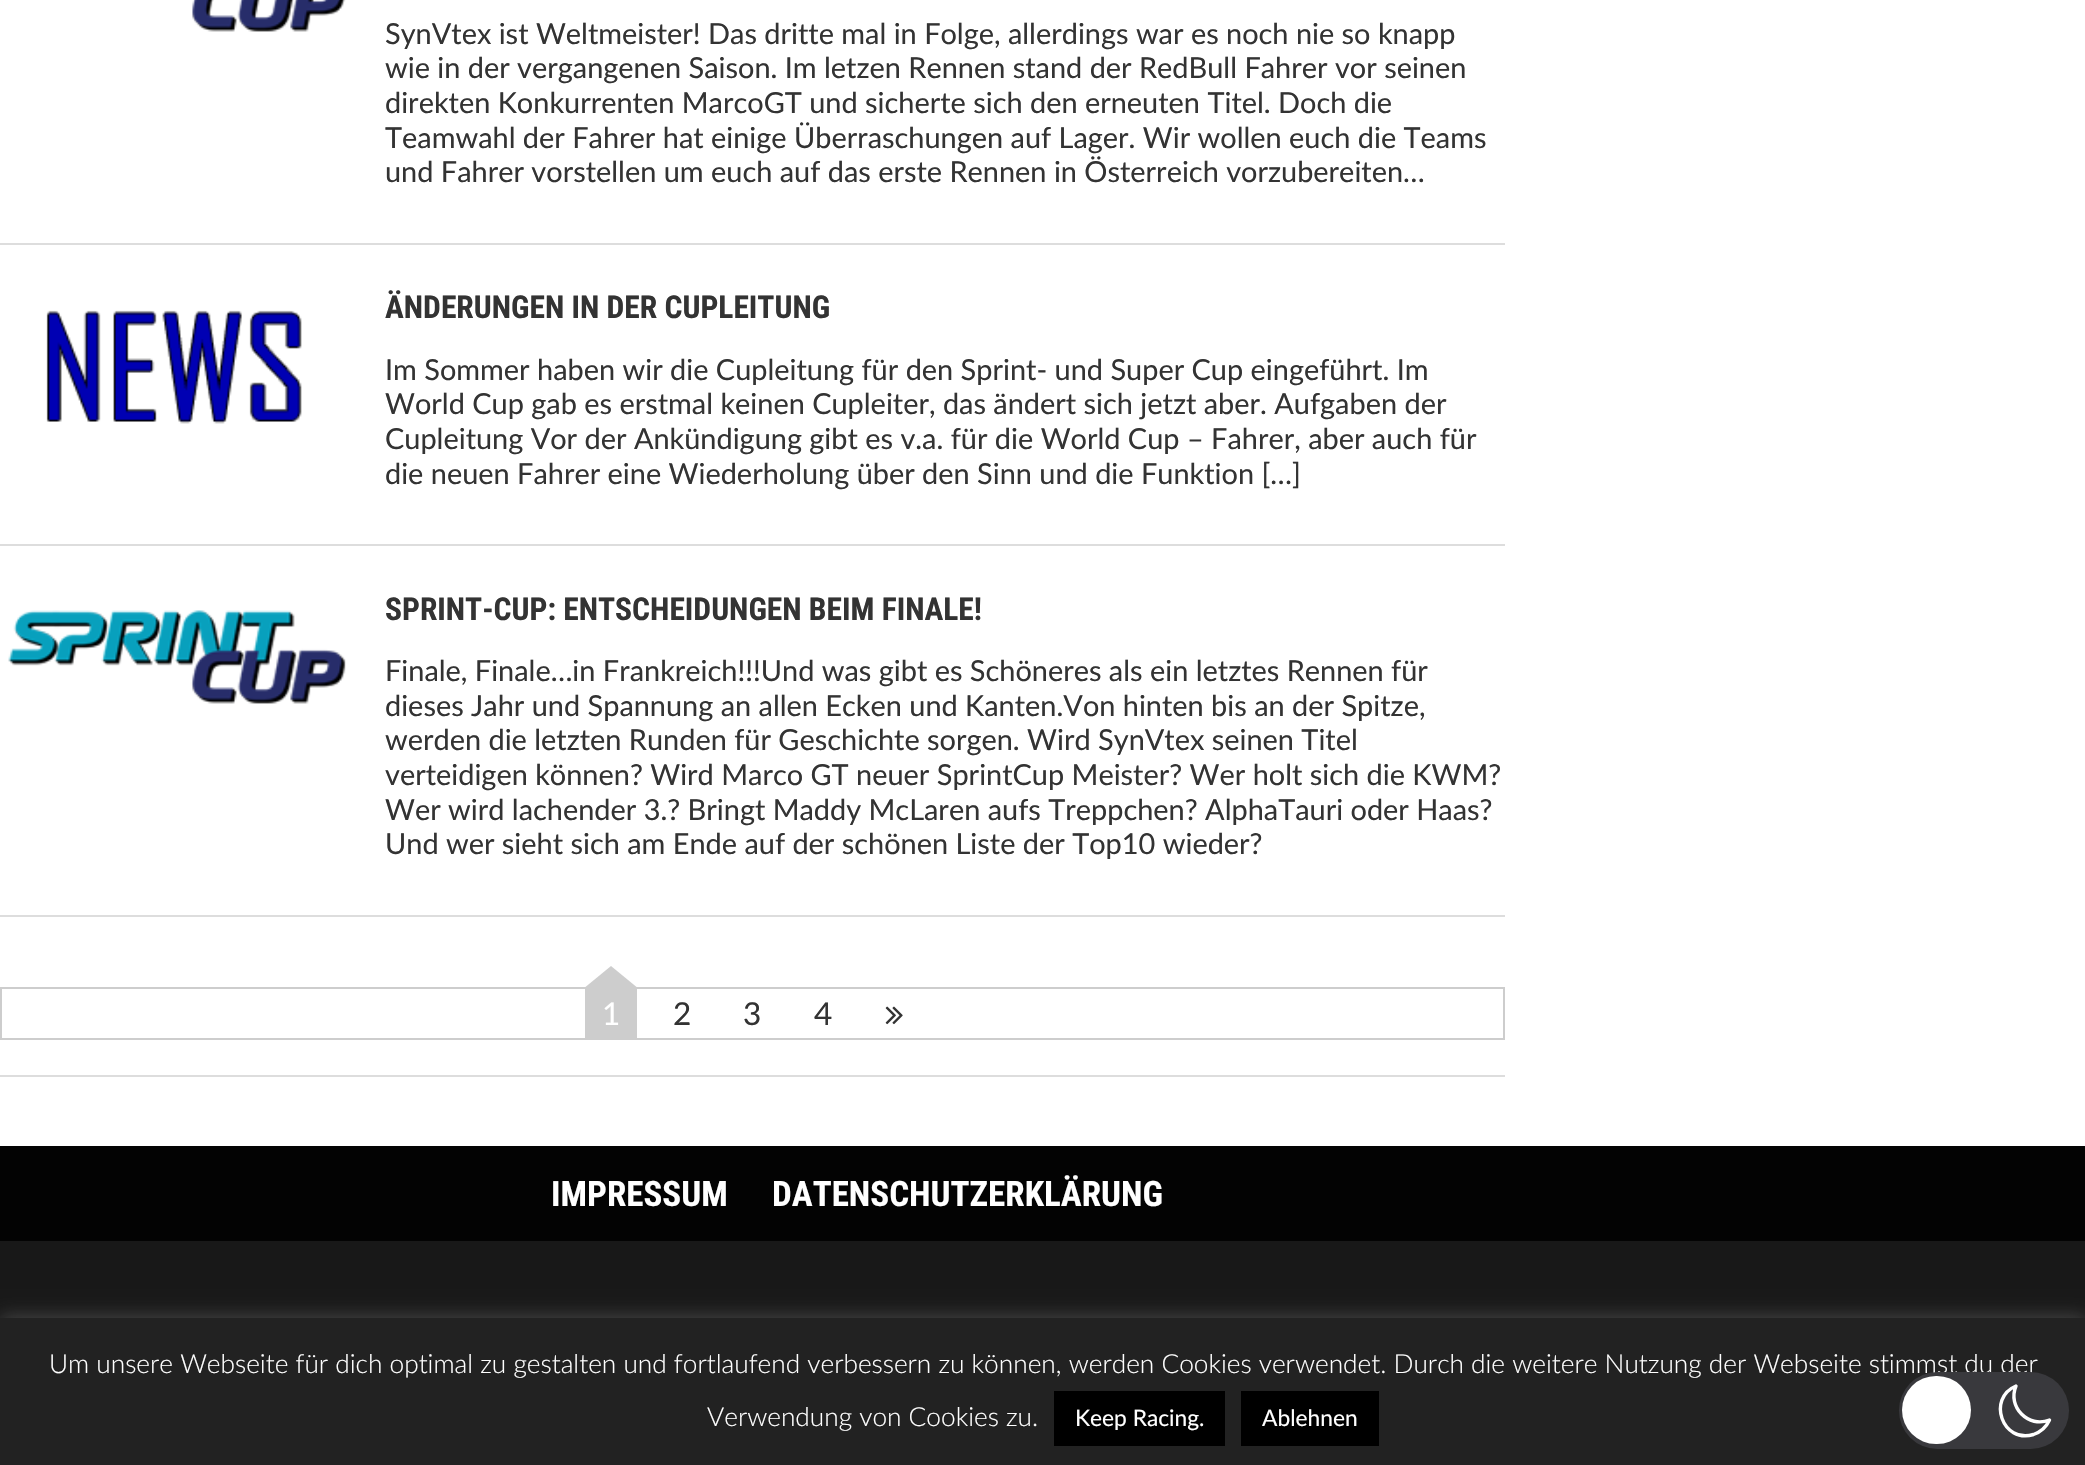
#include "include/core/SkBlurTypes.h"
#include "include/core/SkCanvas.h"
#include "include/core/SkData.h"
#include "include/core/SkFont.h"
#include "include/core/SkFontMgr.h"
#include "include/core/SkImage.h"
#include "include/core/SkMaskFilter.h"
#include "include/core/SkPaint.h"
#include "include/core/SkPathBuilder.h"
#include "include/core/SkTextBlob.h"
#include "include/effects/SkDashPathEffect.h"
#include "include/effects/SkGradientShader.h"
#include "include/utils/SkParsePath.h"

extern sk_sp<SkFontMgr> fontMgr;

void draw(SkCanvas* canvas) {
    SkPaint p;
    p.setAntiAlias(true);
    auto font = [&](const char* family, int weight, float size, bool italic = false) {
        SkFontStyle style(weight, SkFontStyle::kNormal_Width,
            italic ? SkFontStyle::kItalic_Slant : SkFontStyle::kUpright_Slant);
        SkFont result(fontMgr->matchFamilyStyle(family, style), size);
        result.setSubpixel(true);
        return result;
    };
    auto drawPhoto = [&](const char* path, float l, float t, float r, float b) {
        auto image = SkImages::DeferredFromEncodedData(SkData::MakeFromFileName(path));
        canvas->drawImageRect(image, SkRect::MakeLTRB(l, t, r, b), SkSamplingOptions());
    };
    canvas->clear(0xFFFFFFFF);
    p.setColor(0xFFDDDDDD);
    canvas->drawRect(SkRect::MakeLTRB(0, 1075, 1505, 1077), p);
    canvas->drawRect(SkRect::MakeLTRB(0, 243, 1505, 245), p);
    drawPhoto("media/1.png", 192, 0, 346, 32);
    auto font1 = font("Lato", 400, 28.9f);
    p.setColor(0xFF333333);
    {
        const struct { const char* s; float x, y; } items[] = {
            {"SynVtex ist Weltmeister! Das dritte mal in Folge, allerdings war es noch nie so knapp", 385, 44},
            {"wie in der vergangenen Saison. Im letzen Rennen stand der RedBull Fahrer vor seinen", 385, 78},
            {"direkten Konkurrenten MarcoGT und sicherte sich den erneuten Titel. Doch die", 385, 113},
            {"Teamwahl der Fahrer hat einige Überraschungen auf Lager. Wir wollen euch die Teams", 385, 148},
            {"und Fahrer vorstellen um euch auf das erste Rennen in Österreich vorzubereiten…", 385, 182},
        };
        for (auto [s, x, y] : items) {
            canvas->drawString(s, x, y, font1, p);
        }
    }
    p.setColor(0xFFDDDDDD);
    canvas->drawRect(SkRect::MakeLTRB(0, 544, 1505, 546), p);
    drawPhoto("media/2.png", 46, 310, 302, 424);
    auto font2 = font("Roboto Condensed", 700, 31.5f);
    p.setColor(0xFF333333);
    canvas->drawString("ÄNDERUNGEN IN DER CUPLEITUNG", 385, 318, font2, p);
    {
        const struct { const char* s; float x, y; } items[] = {
            {"Im Sommer haben wir die Cupleitung für den Sprint- und Super Cup eingeführt. Im", 385, 380},
            {"World Cup gab es erstmal keinen Cupleiter, das ändert sich jetzt aber. Aufgaben der", 385, 414},
            {"Cupleitung Vor der Ankündigung gibt es v.a. für die World Cup – Fahrer, aber auch für", 385, 449},
            {"die neuen Fahrer eine Wiederholung über den Sinn und die Funktion […]", 385, 484},
        };
        for (auto [s, x, y] : items) {
            canvas->drawString(s, x, y, font1, p);
        }
    }
    p.setColor(0xFFDDDDDD);
    canvas->drawRect(SkRect::MakeLTRB(0, 915, 1505, 917), p);
    drawPhoto("media/3.png", 8, 610, 346, 704);
    p.setColor(0xFF333333);
    canvas->drawString("SPRINT-CUP: ENTSCHEIDUNGEN BEIM FINALE!", 385, 620, font2, p);
    {
        const struct { const char* s; float x, y; } items[] = {
            {"Finale, Finale…in Frankreich!!!Und was gibt es Schöneres als ein letztes Rennen für", 385, 681},
            {"dieses Jahr und Spannung an allen Ecken und Kanten.Von hinten bis an der Spitze,", 385, 716},
            {"werden die letzten Runden für Geschichte sorgen. Wird SynVtex seinen Titel", 385, 750},
            {"verteidigen können? Wird Marco GT neuer SprintCup Meister? Wer holt sich die KWM?", 385, 785},
            {"Wer wird lachender 3.? Bringt Maddy McLaren aufs Treppchen? AlphaTauri oder Haas?", 385, 820},
            {"Und wer sieht sich am Ende auf der schönen Liste der Top10 wieder?", 385, 854},
        };
        for (auto [s, x, y] : items) {
            canvas->drawString(s, x, y, font1, p);
        }
    }
    p.setStyle(SkPaint::kStroke_Style);
    p.setStrokeWidth(2);
    p.setColor(0xFFCDCDCD);
    canvas->drawRect(SkRect::MakeLTRB(1, 988, 1504, 1039), p);
    p.setStyle(SkPaint::kFill_Style);
    canvas->drawRect(SkRect::MakeLTRB(585, 989, 637, 1038), p);
    canvas->drawPath(SkPathBuilder().moveTo(639, 989).lineTo(583, 989).lineTo(611, 966).close().detach(), p);
    auto font3 = font("Lato", 400, 31.5f);
    p.setColor(0xFFFFFFFF);
    canvas->drawString("1", 602, 1025, font3, p);
    p.setColor(0xFF333333);
    {
        const struct { const char* s; float x, y; } items[] = {
            {"2", 673, 1025},
            {"3", 743, 1025},
            {"4", 814, 1025},
        };
        for (auto [s, x, y] : items) {
            canvas->drawString(s, x, y, font3, p);
        }
    }
    drawPhoto("media/4.png", 885, 1006, 903, 1025);
    p.setColor(0xFF181818);
    canvas->drawRect(SkRect::MakeLTRB(0, 1241, 2085, 1318), p);
    p.setColor(0xFF030303);
    canvas->drawRect(SkRect::MakeLTRB(0, 1146, 2085, 1241), p);
    auto font4 = font("Roboto Condensed", 700, 35);
    p.setColor(0xFFFFFFFF);
    canvas->drawString("IMPRESSUM", 551, 1206, font4, p);
    canvas->drawString("DATENSCHUTZERKLÄRUNG", 772, 1206, font4, p);
    p.setColor(0x4DACABAB);
    p.setMaskFilter(SkMaskFilter::MakeBlur(kNormal_SkBlurStyle, 9));
    canvas->drawRect(SkRect::MakeLTRB(0, 1316, 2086, 1465), p);
    p.setMaskFilter(nullptr);
    p.setColor(0xFF222222);
    canvas->drawRect(SkRect::MakeLTRB(0, 1318, 2085, 1465), p);
    auto font5 = font("Lato", 300, 26.25f);
    p.setColor(0xFFFFFFFF);
    canvas->drawString("Um unsere Webseite für dich optimal zu gestalten und fortlaufend verbessern zu können, werden Cookies verwendet. Durch die weitere Nutzung der Webseite stimmst du der", 49, 1373, font5, p);
    canvas->drawString("Verwendung von Cookies zu.", 707, 1426, font5, p);
    p.setColor(0xFF000000);
    canvas->drawRect(SkRect::MakeLTRB(1054, 1391, 1225, 1446), p);
    auto font6 = font("Lato", 400, 22.75f);
    p.setColor(0xFFFFFFFF);
    canvas->drawString("Keep Racing.", 1075, 1426, font6, p);
    p.setColor(0xFF000000);
    canvas->drawRect(SkRect::MakeLTRB(1241, 1391, 1379, 1446), p);
    p.setColor(0xFFFFFFFF);
    canvas->drawString("Ablehnen", 1262, 1426, font6, p);
    p.setColor(0xFF39393D);
    canvas->drawRoundRect(SkRect::MakeLTRB(1899, 1372, 2069, 1449), 38.5f, 38.5f, p);
    drawPhoto("media/5.png", 1970, 1405, 1971, 1416);
    p.setColor(0xFFFFFFFF);
    canvas->drawRoundRect(SkRect::MakeLTRB(1902, 1376, 1971, 1444), 34, 34, p);
    p.setStyle(SkPaint::kStroke_Style);
    p.setStrokeWidth(3.4f);
    p.setStrokeCap(SkPaint::kRound_Cap);
    p.setStrokeJoin(SkPaint::kRound_Join);
    canvas->drawPath(SkPathBuilder().moveTo(2049.5f, 1420).cubicTo(2028.5f, 1428.5f, 2007, 1407, 2016, 1386).cubicTo(1986.5f, 1398.5f, 2002.5f, 1444, 2033.5f, 1434.5f).cubicTo(2040.5f, 1432, 2046.5f, 1426.5f, 2049.5f, 1420).close().detach(), p);
}
